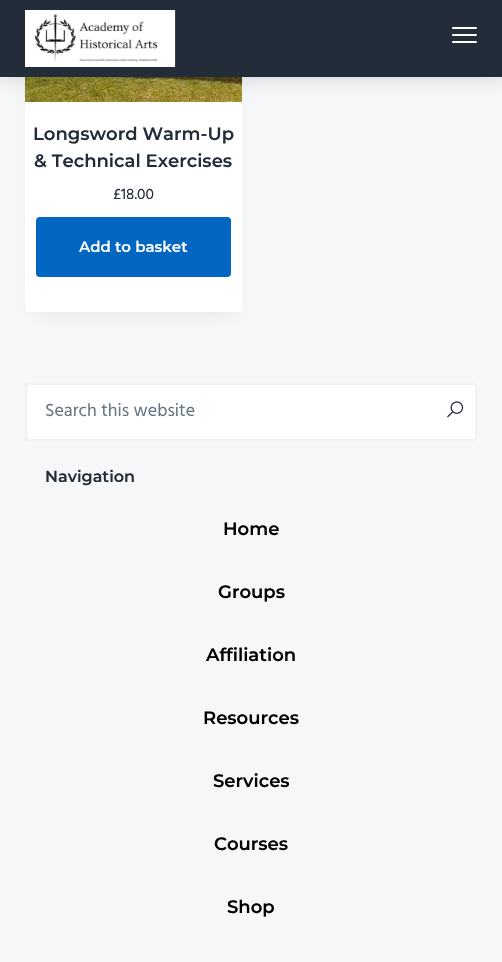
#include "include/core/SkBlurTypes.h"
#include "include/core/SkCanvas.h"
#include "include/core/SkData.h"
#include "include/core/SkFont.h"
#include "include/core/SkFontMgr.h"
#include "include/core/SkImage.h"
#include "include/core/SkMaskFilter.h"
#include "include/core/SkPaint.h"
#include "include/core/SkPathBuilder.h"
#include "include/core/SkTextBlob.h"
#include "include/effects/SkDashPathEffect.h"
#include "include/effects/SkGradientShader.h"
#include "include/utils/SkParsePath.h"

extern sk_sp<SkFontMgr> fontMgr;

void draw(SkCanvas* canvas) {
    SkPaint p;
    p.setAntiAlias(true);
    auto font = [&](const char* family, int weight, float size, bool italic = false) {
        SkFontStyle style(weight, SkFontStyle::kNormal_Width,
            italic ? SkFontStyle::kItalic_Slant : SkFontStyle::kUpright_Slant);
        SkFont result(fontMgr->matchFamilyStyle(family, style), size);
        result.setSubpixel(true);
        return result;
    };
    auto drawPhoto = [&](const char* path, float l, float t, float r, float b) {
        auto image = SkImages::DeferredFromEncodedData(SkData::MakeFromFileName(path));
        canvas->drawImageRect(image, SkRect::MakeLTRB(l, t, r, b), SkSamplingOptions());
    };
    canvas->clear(0xFFF6F7F8);
    p.setColor(0x1A232C39);
    p.setMaskFilter(SkMaskFilter::MakeBlur(kNormal_SkBlurStyle, 10));
    canvas->drawRect(SkRect::MakeLTRB(35, -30, 232, 312), p);
    p.setMaskFilter(nullptr);
    p.setColor(0xFFFFFFFF);
    canvas->drawRoundRect(SkRect::MakeLTRB(25, -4, 242, 312), 4, 4, p);
    drawPhoto("media/2.png", 25, 77, 242, 102);
    p.setColor(0x33232C39);
    p.setMaskFilter(SkMaskFilter::MakeBlur(kNormal_SkBlurStyle, 10));
    canvas->drawRect(SkRect::MakeLTRB(0, 0, 502, 77), p);
    p.setMaskFilter(nullptr);
    p.setColor(0xFF232C39);
    canvas->drawRect(SkRect::MakeLTRB(0, 0, 502, 77), p);
    drawPhoto("media/1.png", 25, 10, 176, 67);
    p.setColor(0xFFFFFFFF);
    canvas->drawRoundRect(SkRect::MakeLTRB(452, 34, 477, 36), 1, 1, p);
    canvas->drawRoundRect(SkRect::MakeLTRB(452, 27, 477, 29), 1, 1, p);
    canvas->drawRoundRect(SkRect::MakeLTRB(452, 41, 477, 43), 1, 1, p);
    auto font1 = font("Montserrat", 100, 18);
    p.setColor(0xFF232C39);
    canvas->drawString("Longsword Warm-Up", 33, 140, font1, p);
    canvas->drawString("& Technical Exercises", 34, 167, font1, p);
    auto font2 = font("Hind", 400, 15.5f);
    canvas->drawString("£18.00", 113, 199, font2, p);
    p.setColor(0xFF0066BF);
    canvas->drawRoundRect(SkRect::MakeLTRB(36, 217, 231, 277), 4, 4, p);
    auto font3 = font("Montserrat", 100, 15);
    p.setColor(0xFFFFFFFF);
    canvas->drawString("Add to basket", 79, 252, font3, p);
    canvas->drawRoundRect(SkRect::MakeLTRB(26, 384, 476, 440), 3, 3, p);
    p.setStyle(SkPaint::kStroke_Style);
    p.setStrokeWidth(2);
    p.setColor(0xFFF0F1F2);
    canvas->drawRoundRect(SkRect::MakeLTRB(26, 384, 476, 440), 3, 3, p);
    auto font4 = font("Hind", 400, 18);
    p.setStyle(SkPaint::kFill_Style);
    p.setColor(0xFF647585);
    canvas->drawString("Search this website", 45, 416, font4, p);
    drawPhoto("media/3.png", 447, 401, 464, 418);
    auto font5 = font("Montserrat", 100, 16);
    p.setColor(0xFF232C39);
    canvas->drawString("Navigation", 45, 482, font5, p);
    p.setColor(0xFF000000);
    {
        const struct { const char* s; float x, y; } items[] = {
            {"Home", 223, 535},
            {"Groups", 218, 598},
            {"Affiliation", 206, 661},
            {"Resources", 203, 724},
            {"Services", 213, 787},
            {"Courses", 214, 850},
            {"Shop", 227, 913},
        };
        for (auto [s, x, y] : items) {
            canvas->drawString(s, x, y, font1, p);
        }
    }
}
